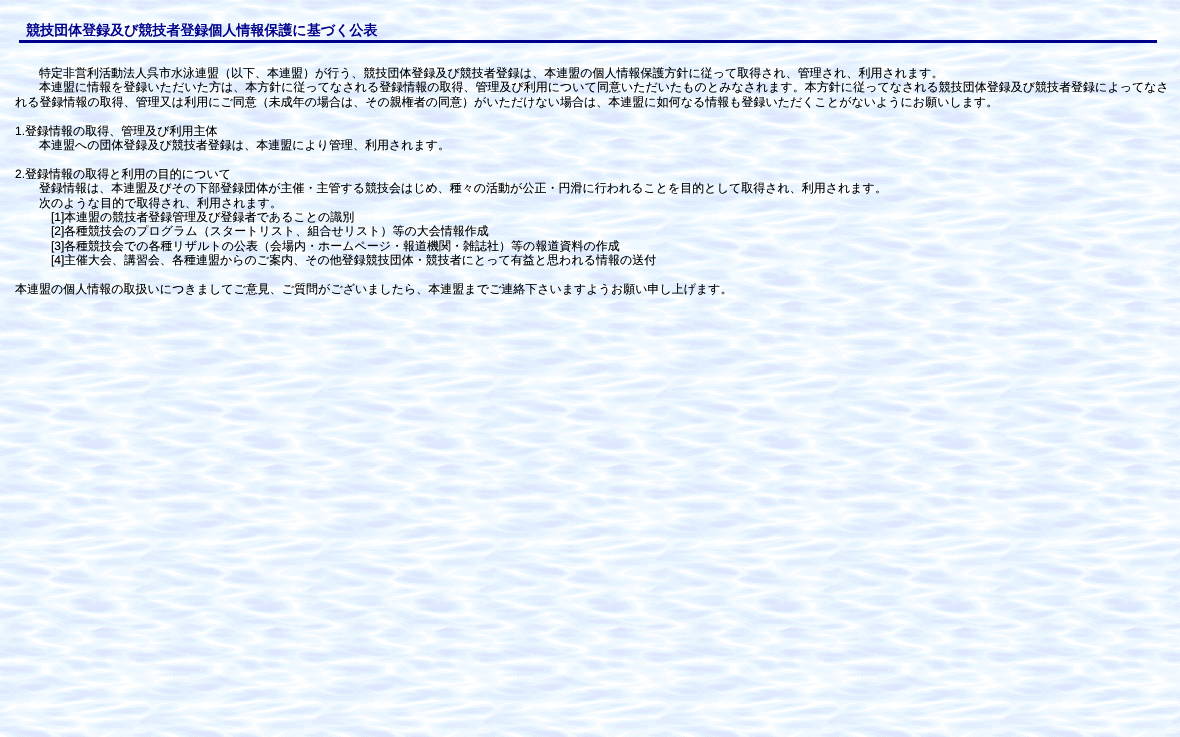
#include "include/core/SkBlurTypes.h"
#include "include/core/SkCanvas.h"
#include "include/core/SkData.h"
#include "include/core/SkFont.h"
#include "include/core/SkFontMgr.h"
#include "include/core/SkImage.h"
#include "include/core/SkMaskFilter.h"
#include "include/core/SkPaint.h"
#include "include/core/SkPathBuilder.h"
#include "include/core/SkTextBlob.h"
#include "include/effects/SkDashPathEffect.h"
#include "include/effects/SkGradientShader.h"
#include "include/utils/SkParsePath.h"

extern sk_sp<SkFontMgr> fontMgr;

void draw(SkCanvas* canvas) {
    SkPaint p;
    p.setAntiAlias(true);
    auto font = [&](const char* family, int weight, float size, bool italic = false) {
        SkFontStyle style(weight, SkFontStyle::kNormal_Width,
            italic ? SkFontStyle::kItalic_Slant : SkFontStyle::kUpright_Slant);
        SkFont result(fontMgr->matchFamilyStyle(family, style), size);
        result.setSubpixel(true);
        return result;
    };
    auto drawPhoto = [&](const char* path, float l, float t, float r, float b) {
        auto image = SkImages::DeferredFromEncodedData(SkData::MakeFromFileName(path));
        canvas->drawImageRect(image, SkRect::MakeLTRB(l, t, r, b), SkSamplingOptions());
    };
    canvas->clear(0xFFFFFFFF);
    drawPhoto("media/1.png", 0, 0, 1180, 737);
    p.setColor(0xFF00008B);
    canvas->drawRect(SkRect::MakeLTRB(19, 40, 1157, 43), p);
    auto font1 = font("WenQuanYi Zen Hei", 700, 14);
    canvas->drawString("競技団体登録及び競技者登録個人情報保護に基づく公表", 26, 35, font1, p);
    auto font2 = font("WenQuanYi Zen Hei", 500, 12);
    p.setColor(0xFF000000);
    {
        const struct { const char* s; float x, y; } items[] = {
            {"特定非営利活動法人呉市水泳連盟（以下、本連盟）が行う、競技団体登録及び競技者登録は、本連盟の個人情報保護方針に従って取得され、管理され、利用されます。", 39, 77},
            {"本連盟に情報を登録いただいた方は、本方針に従ってなされる登録情報の取得、管理及び利用について同意いただいたものとみなされます。本方針に従ってなされる競技団体登録及び競技者登録によってなさ", 39, 91},
            {"れる登録情報の取得、管理又は利用にご同意（未成年の場合は、その親権者の同意）がいただけない場合は、本連盟に如何なる情報も登録いただくことがないようにお願いします。", 15, 106},
        };
        for (auto [s, x, y] : items) {
            canvas->drawString(s, x, y, font2, p);
        }
    }
    auto font3 = font("Liberation Sans", 400, 12);
    canvas->drawString("1.", 15, 135, font3, p);
    canvas->drawString("登録情報の取得、管理及び利用主体", 25, 135, font2, p);
    canvas->drawString("本連盟への団体登録及び競技者登録は、本連盟により管理、利用されます。", 39, 149, font2, p);
    canvas->drawString("2.", 15, 178, font3, p);
    {
        const struct { const char* s; float x, y; } items[] = {
            {"登録情報の取得と利用の目的について", 25, 178},
            {"登録情報は、本連盟及びその下部登録団体が主催・主管する競技会はじめ、種々の活動が公正・円滑に行われることを目的として取得され、利用されます。", 39, 192},
            {"次のような目的で取得され、利用されます。", 39, 207},
        };
        for (auto [s, x, y] : items) {
            canvas->drawString(s, x, y, font2, p);
        }
    }
    canvas->drawString("[1]", 51, 221, font3, p);
    canvas->drawString("本連盟の競技者登録管理及び登録者であることの識別", 64, 221, font2, p);
    canvas->drawString("[2]", 51, 235, font3, p);
    canvas->drawString("各種競技会のプログラム（スタートリスト、組合せリスト）等の大会情報作成", 64, 235, font2, p);
    canvas->drawString("[3]", 51, 250, font3, p);
    canvas->drawString("各種競技会での各種リザルトの公表（会場内・ホームページ・報道機関・雑誌社）等の報道資料の作成", 64, 250, font2, p);
    canvas->drawString("[4]", 51, 264, font3, p);
    canvas->drawString("主催大会、講習会、各種連盟からのご案内、その他登録競技団体・競技者にとって有益と思われる情報の送付", 64, 264, font2, p);
    canvas->drawString("本連盟の個人情報の取扱いにつきましてご意見、ご質問がございましたら、本連盟までご連絡下さいますようお願い申し上げます。", 15, 293, font2, p);
}
